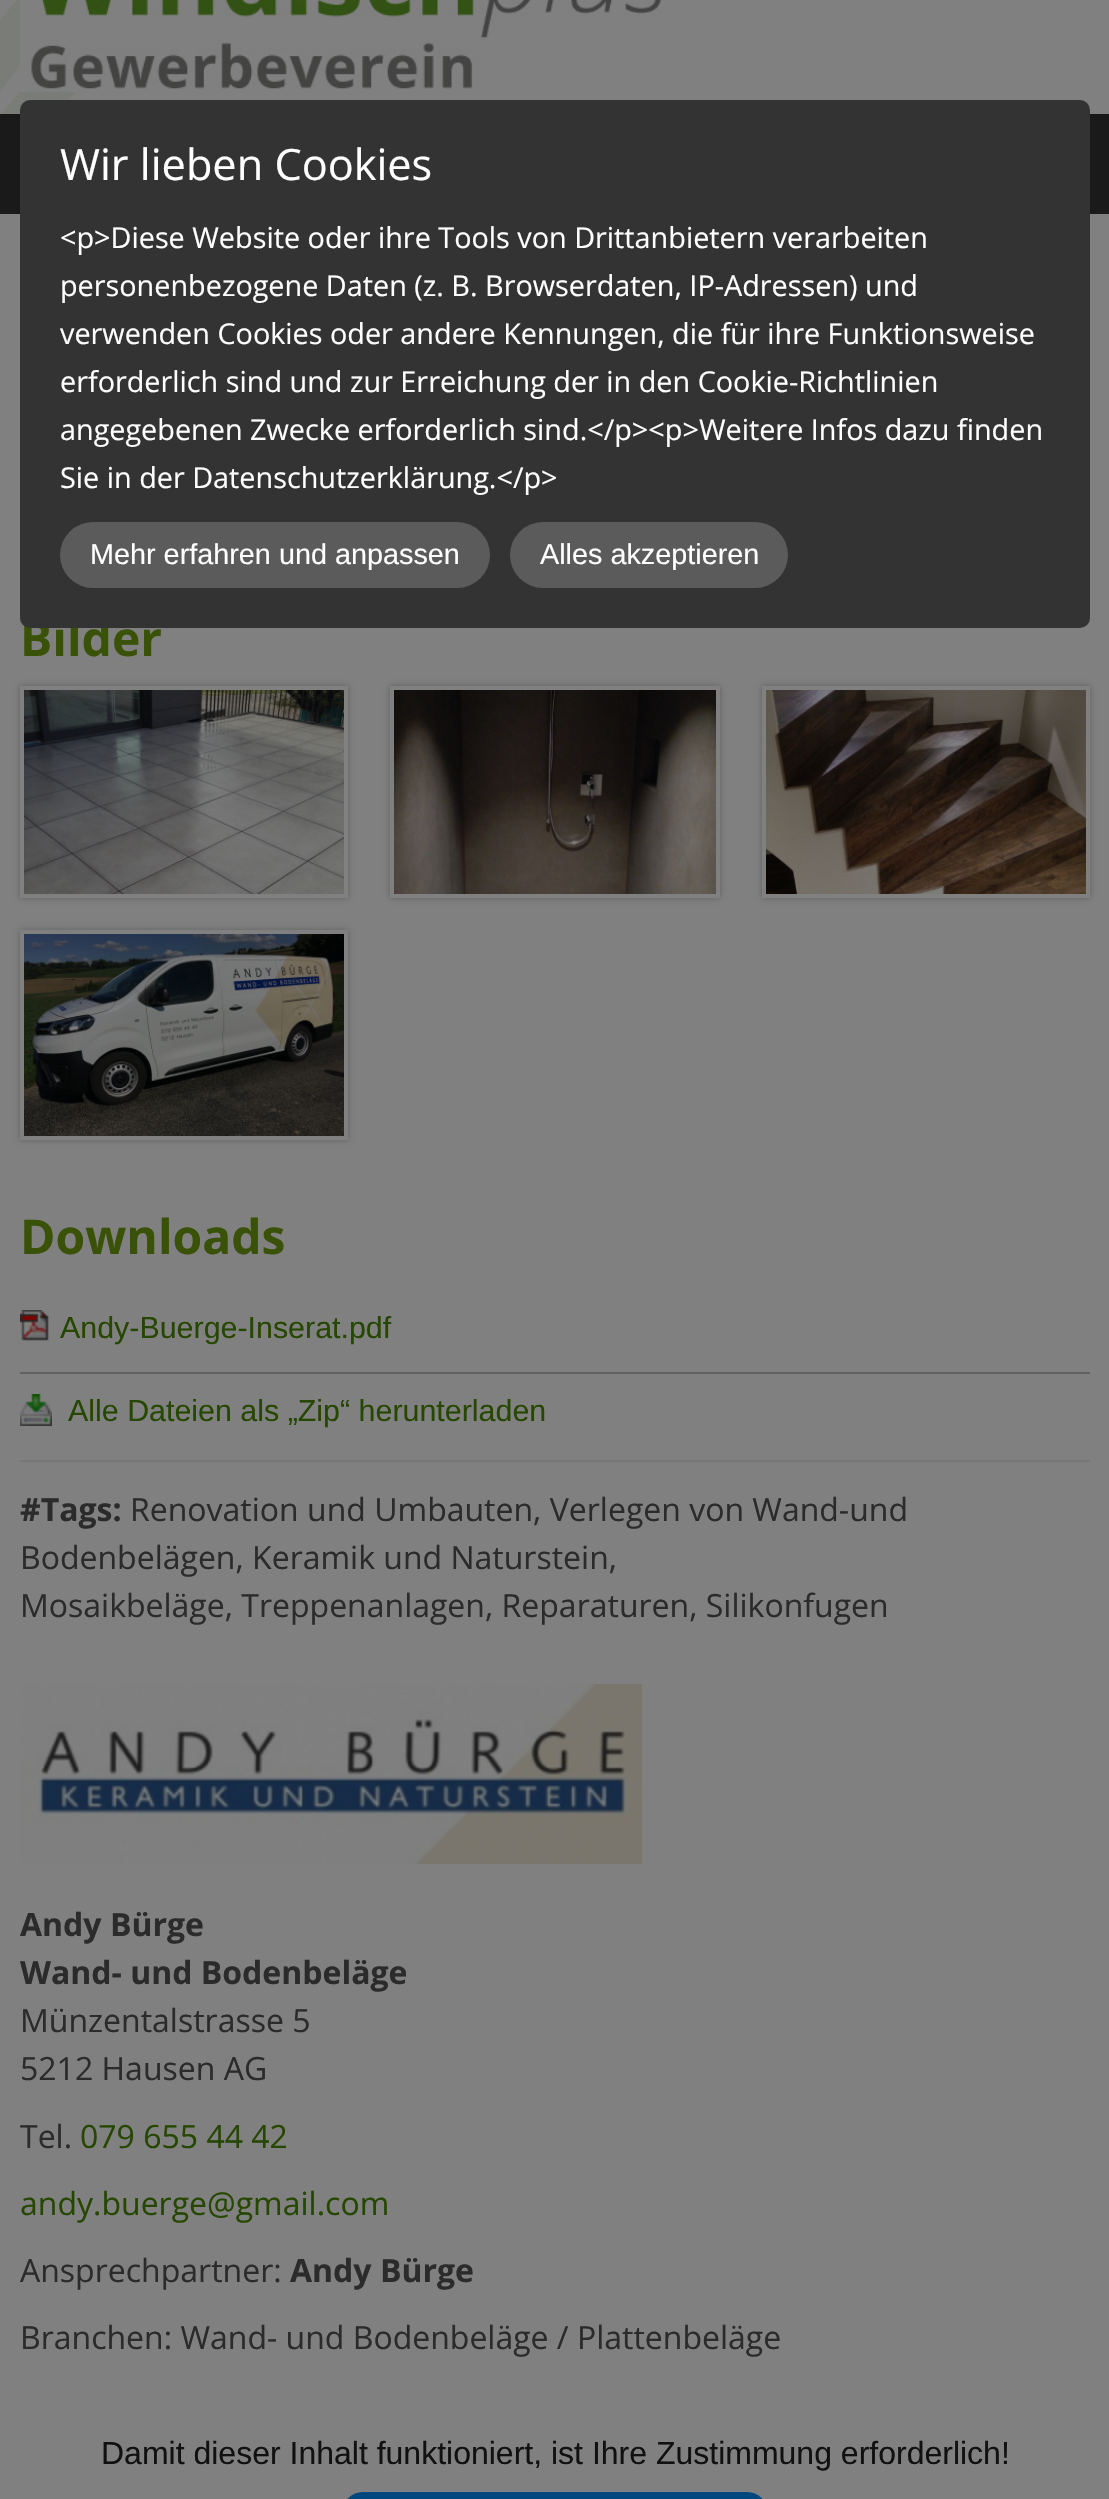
#include "include/core/SkBlurTypes.h"
#include "include/core/SkCanvas.h"
#include "include/core/SkData.h"
#include "include/core/SkFont.h"
#include "include/core/SkFontMgr.h"
#include "include/core/SkImage.h"
#include "include/core/SkMaskFilter.h"
#include "include/core/SkPaint.h"
#include "include/core/SkPathBuilder.h"
#include "include/core/SkTextBlob.h"
#include "include/effects/SkDashPathEffect.h"
#include "include/effects/SkGradientShader.h"
#include "include/utils/SkParsePath.h"

extern sk_sp<SkFontMgr> fontMgr;

void draw(SkCanvas* canvas) {
    SkPaint p;
    p.setAntiAlias(true);
    auto font = [&](const char* family, int weight, float size, bool italic = false) {
        SkFontStyle style(weight, SkFontStyle::kNormal_Width,
            italic ? SkFontStyle::kItalic_Slant : SkFontStyle::kUpright_Slant);
        SkFont result(fontMgr->matchFamilyStyle(family, style), size);
        result.setSubpixel(true);
        return result;
    };
    auto drawPhoto = [&](const char* path, float l, float t, float r, float b) {
        auto image = SkImages::DeferredFromEncodedData(SkData::MakeFromFileName(path));
        canvas->drawImageRect(image, SkRect::MakeLTRB(l, t, r, b), SkSamplingOptions());
    };
    canvas->clear(0xFF808080);
    p.setColor(0xFF1A1A1A);
    canvas->drawRect(SkRect::MakeLTRB(0, 114, 1109, 214), p);
    p.setColor(0x1A000000);
    p.setMaskFilter(SkMaskFilter::MakeBlur(kNormal_SkBlurStyle, 2));
    canvas->drawRect(SkRect::MakeLTRB(0, -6, 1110, 118), p);
    p.setMaskFilter(nullptr);
    p.setColor(0xFF7A7D77);
    canvas->drawRect(SkRect::MakeLTRB(0, 0, 76, 114), p);
    drawPhoto("media/1.png", 0, 0, 1109, 114);
    auto font1 = font("Open Sans", 700, 48);
    p.setColor(0xFF3A5208);
    canvas->drawString("Bilder", 20, 656, font1, p);
    p.setColor(0xFF333333);
    canvas->drawRoundRect(SkRect::MakeLTRB(20, 100, 1090, 628), 10, 10, p);
    auto font2 = font("Open Sans", 400, 43.25f);
    p.setColor(0xFFFFFFFF);
    canvas->drawString("Wir lieben Cookies", 60, 180, font2, p);
    auto font3 = font("Open Sans", 400, 28.8f);
    {
        const struct { const char* s; float x, y; } items[] = {
            {"<p>Diese Website oder ihre Tools von Drittanbietern verarbeiten", 60, 248},
            {"personenbezogene Daten (z. B. Browserdaten, IP-Adressen) und", 60, 296},
            {"verwenden Cookies oder andere Kennungen, die für ihre Funktionsweise", 60, 344},
            {"erforderlich sind und zur Erreichung der in den Cookie-Richtlinien", 60, 392},
            {"angegebenen Zwecke erforderlich sind.</p><p>Weitere Infos dazu finden", 60, 440},
            {"Sie in der Datenschutzerklärung.</p>", 60, 488},
        };
        for (auto [s, x, y] : items) {
            canvas->drawString(s, x, y, font3, p);
        }
    }
    p.setColor(0xFF5B5B5B);
    canvas->drawRoundRect(SkRect::MakeLTRB(60, 522, 490, 588), 33, 33, p);
    auto font4 = font("Liberation Sans", 400, 28.8f);
    p.setColor(0xFFFFFFFF);
    canvas->drawString("Mehr erfahren und anpassen", 90, 564, font4, p);
    p.setColor(0xFF5B5B5B);
    canvas->drawRoundRect(SkRect::MakeLTRB(510, 522, 788, 588), 33, 33, p);
    p.setColor(0xFFFFFFFF);
    canvas->drawString("Alles akzeptieren", 540, 564, font4, p);
    drawPhoto("media/2.png", 20, 0, 661, 92);
    p.setColor(0x40000000);
    p.setMaskFilter(SkMaskFilter::MakeBlur(kNormal_SkBlurStyle, 3));
    canvas->drawRect(SkRect::MakeLTRB(20, 686, 348, 898), p);
    p.setMaskFilter(nullptr);
    drawPhoto("media/3.png", 24, 690, 344, 894);
    p.setStyle(SkPaint::kStroke_Style);
    p.setStrokeWidth(4);
    p.setColor(0xFF808080);
    canvas->drawRect(SkRect::MakeLTRB(22, 688, 346, 896), p);
    p.setStyle(SkPaint::kFill_Style);
    p.setColor(0x40000000);
    p.setMaskFilter(SkMaskFilter::MakeBlur(kNormal_SkBlurStyle, 3));
    canvas->drawRect(SkRect::MakeLTRB(390, 686, 720, 898), p);
    p.setMaskFilter(nullptr);
    drawPhoto("media/4.png", 394, 690, 716, 894);
    p.setStyle(SkPaint::kStroke_Style);
    p.setColor(0xFF808080);
    canvas->drawRect(SkRect::MakeLTRB(392, 688, 718, 896), p);
    p.setStyle(SkPaint::kFill_Style);
    p.setColor(0x40000000);
    p.setMaskFilter(SkMaskFilter::MakeBlur(kNormal_SkBlurStyle, 3));
    canvas->drawRect(SkRect::MakeLTRB(762, 686, 1090, 898), p);
    p.setMaskFilter(nullptr);
    drawPhoto("media/5.png", 766, 690, 1086, 894);
    p.setStyle(SkPaint::kStroke_Style);
    p.setColor(0xFF808080);
    canvas->drawRect(SkRect::MakeLTRB(764, 688, 1088, 896), p);
    p.setStyle(SkPaint::kFill_Style);
    p.setColor(0x40000000);
    p.setMaskFilter(SkMaskFilter::MakeBlur(kNormal_SkBlurStyle, 3));
    canvas->drawRect(SkRect::MakeLTRB(20, 930, 348, 1140), p);
    p.setMaskFilter(nullptr);
    drawPhoto("media/6.png", 24, 934, 344, 1136);
    p.setStyle(SkPaint::kStroke_Style);
    p.setColor(0xFF808080);
    canvas->drawRect(SkRect::MakeLTRB(22, 932, 346, 1138), p);
    p.setStyle(SkPaint::kFill_Style);
    p.setColor(0xFF3A5208);
    canvas->drawString("Downloads", 20, 1254, font1, p);
    drawPhoto("media/7.png", 20, 1310, 49, 1341);
    auto font5 = font("Liberation Sans", 400, 30.4f);
    p.setColor(0xFF264700);
    canvas->drawString("Andy-Buerge-Inserat.pdf", 60, 1338, font5, p);
    drawPhoto("media/8.png", 20, 1394, 52, 1426);
    p.setColor(0xFF616161);
    canvas->drawRect(SkRect::MakeLTRB(20, 1372, 1090, 1374), p);
    p.setColor(0xFF264700);
    canvas->drawString("Alle Dateien als „Zip“ herunterladen", 68, 1421, font5, p);
    p.setColor(0xFF777777);
    canvas->drawRect(SkRect::MakeLTRB(20, 1460, 1090, 1462), p);
    auto font6 = font("Open Sans", 700, 32);
    p.setColor(0xFF2B2B2B);
    canvas->drawString("#Tags:", 20, 1521, font6, p);
    auto font7 = font("Open Sans", 400, 32);
    {
        const struct { const char* s; float x, y; } items[] = {
            {"Renovation und Umbauten, Verlegen von Wand-und", 130, 1521},
            {"Bodenbelägen, Keramik und Naturstein,", 20, 1569},
            {"Mosaikbeläge, Treppenanlagen, Reparaturen, Silikonfugen", 20, 1617},
        };
        for (auto [s, x, y] : items) {
            canvas->drawString(s, x, y, font7, p);
        }
    }
    drawPhoto("media/9.png", 20, 1684, 642, 1864);
    canvas->drawString("Andy Bürge", 20, 1936, font6, p);
    canvas->drawString("Wand- und Bodenbeläge", 20, 1984, font6, p);
    {
        const struct { const char* s; float x, y; } items[] = {
            {"Münzentalstrasse 5", 20, 2032},
            {"5212 Hausen AG", 20, 2080},
            {"Tel.", 20, 2148},
        };
        for (auto [s, x, y] : items) {
            canvas->drawString(s, x, y, font7, p);
        }
    }
    p.setColor(0xFF264700);
    canvas->drawString("079 655 44 42", 80, 2148, font7, p);
    canvas->drawString("andy.buerge@gmail.com", 20, 2215, font7, p);
    p.setColor(0xFF2B2B2B);
    canvas->drawString("Ansprechpartner:", 20, 2282, font7, p);
    canvas->drawString("Andy Bürge", 290, 2282, font6, p);
    canvas->drawString("Branchen: Wand- und Bodenbeläge / Plattenbeläge", 20, 2349, font7, p);
    auto font8 = font("Liberation Sans", 400, 32);
    p.setColor(0xFF111111);
    canvas->drawString("Damit dieser Inhalt funktioniert, ist Ihre Zustimmung erforderlich!", 101, 2464, font8, p);
    p.setColor(0xFF004780);
    canvas->drawRoundRect(SkRect::MakeLTRB(342, 2492, 768, 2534), 35, 35, p);
}
